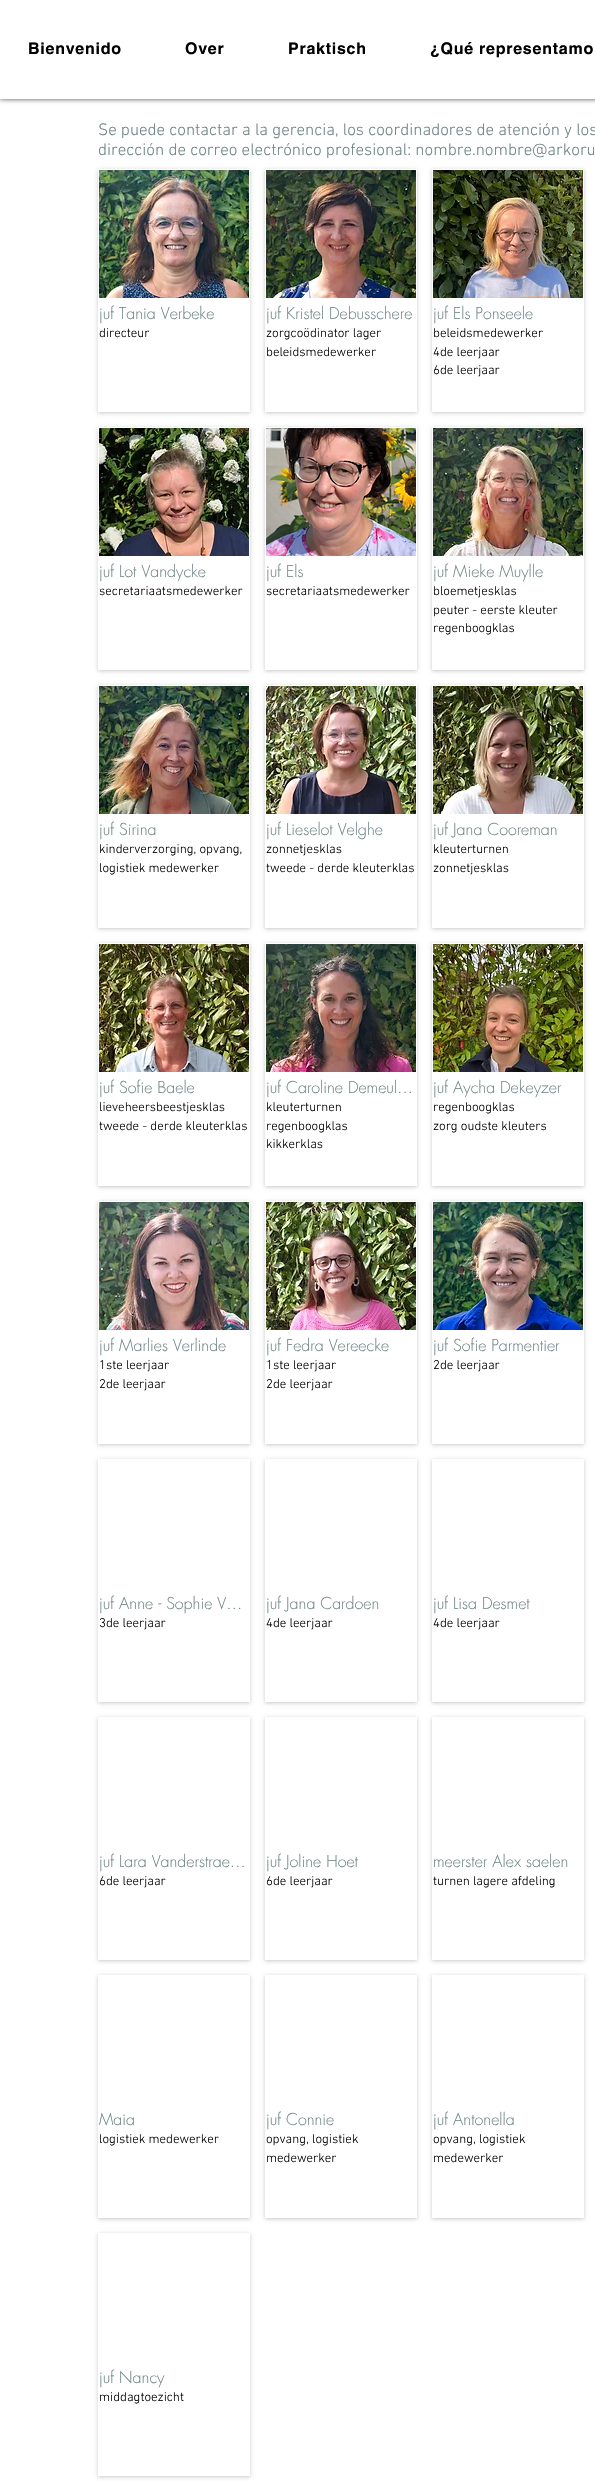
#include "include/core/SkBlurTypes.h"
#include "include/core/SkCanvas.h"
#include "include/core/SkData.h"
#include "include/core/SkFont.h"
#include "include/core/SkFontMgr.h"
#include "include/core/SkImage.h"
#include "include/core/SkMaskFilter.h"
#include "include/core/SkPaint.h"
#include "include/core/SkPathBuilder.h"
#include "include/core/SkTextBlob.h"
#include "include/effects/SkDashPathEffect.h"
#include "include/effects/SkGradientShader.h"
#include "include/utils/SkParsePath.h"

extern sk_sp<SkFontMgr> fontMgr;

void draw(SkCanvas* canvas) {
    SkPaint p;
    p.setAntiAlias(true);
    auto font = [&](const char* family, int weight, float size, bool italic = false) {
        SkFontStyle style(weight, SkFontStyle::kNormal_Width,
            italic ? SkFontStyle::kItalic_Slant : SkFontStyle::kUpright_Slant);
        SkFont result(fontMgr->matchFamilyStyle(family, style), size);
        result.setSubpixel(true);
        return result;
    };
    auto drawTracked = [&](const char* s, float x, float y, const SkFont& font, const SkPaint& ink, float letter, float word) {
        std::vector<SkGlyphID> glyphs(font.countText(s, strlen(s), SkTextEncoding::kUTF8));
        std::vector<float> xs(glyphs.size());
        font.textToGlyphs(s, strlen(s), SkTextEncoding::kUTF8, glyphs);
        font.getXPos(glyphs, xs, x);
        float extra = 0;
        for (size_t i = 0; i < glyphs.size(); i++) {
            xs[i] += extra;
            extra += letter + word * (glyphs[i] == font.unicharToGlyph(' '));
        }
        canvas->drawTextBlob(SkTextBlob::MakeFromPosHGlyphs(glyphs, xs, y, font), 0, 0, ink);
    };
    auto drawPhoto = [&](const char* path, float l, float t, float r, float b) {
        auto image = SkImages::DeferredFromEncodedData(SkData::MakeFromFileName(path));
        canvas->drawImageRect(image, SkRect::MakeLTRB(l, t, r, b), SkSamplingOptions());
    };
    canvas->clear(0xFFFFFFFF);
    p.setColor(0xB3000000);
    p.setMaskFilter(SkMaskFilter::MakeBlur(kNormal_SkBlurStyle, 2.5f));
    canvas->drawRect(SkRect::MakeLTRB(0, 0, 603, 99), p);
    p.setMaskFilter(nullptr);
    p.setColor(0xFFFFFFFF);
    canvas->drawRect(SkRect::MakeLTRB(0, 0, 595, 99), p);
    auto font1 = font("helvetica", 700, 16);
    p.setColor(0xFF000000);
    {
        const struct { const char* s; float x, y; } items[] = {
            {"Bienvenido", 28, 54},
            {"Over", 185, 54},
            {"Praktisch", 288, 54},
            {"¿Qué representamo", 430, 54},
        };
        for (auto [s, x, y] : items) {
            drawTracked(s, x, y, font1, p, 0.75f, 0);
        }
    }
    auto font2 = font("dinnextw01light", 300, 17);
    p.setColor(0xFF718585);
    canvas->drawString("Se puede contactar a la gerencia, los coordinadores de atención y los", 98, 135, font2, p);
    canvas->drawString("dirección de correo electrónico profesional: nombre.nombre@arkoru", 98, 155, font2, p);
    canvas->save();
    canvas->clipPath(SkPathBuilder(SkPathFillType::kEvenOdd).moveTo(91, 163).lineTo(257, 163).lineTo(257, 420).lineTo(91, 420).close().moveTo(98, 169).lineTo(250, 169).lineTo(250, 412).lineTo(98, 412).close().detach(), true);
    p.setColor(0x36000000);
    p.setMaskFilter(SkMaskFilter::MakeBlur(kNormal_SkBlurStyle, 2));
    canvas->drawRect(SkRect::MakeLTRB(98, 170, 250, 413), p);
    p.setMaskFilter(nullptr);
    canvas->restore();
    drawPhoto("media/1.png", 99, 170, 249, 298);
    auto font3 = font("futura", 300, 16);
    p.setColor(0xFF718585);
    canvas->drawString("juf Tania Verbeke", 99, 319, font3, p);
    auto font4 = font("dinnextw01light", 300, 13);
    p.setColor(0xFF000000);
    canvas->drawString("directeur", 99, 337, font4, p);
    canvas->save();
    canvas->clipPath(SkPathBuilder(SkPathFillType::kEvenOdd).moveTo(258, 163).lineTo(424, 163).lineTo(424, 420).lineTo(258, 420).close().moveTo(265, 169).lineTo(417, 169).lineTo(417, 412).lineTo(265, 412).close().detach(), true);
    p.setColor(0x36000000);
    p.setMaskFilter(SkMaskFilter::MakeBlur(kNormal_SkBlurStyle, 2));
    canvas->drawRect(SkRect::MakeLTRB(265, 170, 417, 413), p);
    p.setMaskFilter(nullptr);
    canvas->restore();
    drawPhoto("media/2.png", 266, 170, 416, 298);
    p.setColor(0xFF718585);
    canvas->drawString("juf Kristel Debusschere", 266, 319, font3, p);
    p.setColor(0xFF000000);
    canvas->drawString("zorgcoödinator lager", 266, 337, font4, p);
    canvas->drawString("beleidsmedewerker", 266, 356, font4, p);
    canvas->save();
    canvas->clipPath(SkPathBuilder(SkPathFillType::kEvenOdd).moveTo(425, 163).lineTo(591, 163).lineTo(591, 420).lineTo(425, 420).close().moveTo(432, 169).lineTo(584, 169).lineTo(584, 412).lineTo(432, 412).close().detach(), true);
    p.setColor(0x36000000);
    p.setMaskFilter(SkMaskFilter::MakeBlur(kNormal_SkBlurStyle, 2));
    canvas->drawRect(SkRect::MakeLTRB(432, 170, 584, 413), p);
    p.setMaskFilter(nullptr);
    canvas->restore();
    drawPhoto("media/3.png", 433, 170, 583, 298);
    p.setColor(0xFF718585);
    canvas->drawString("juf Els Ponseele", 433, 319, font3, p);
    p.setColor(0xFF000000);
    {
        const struct { const char* s; float x, y; } items[] = {
            {"beleidsmedewerker", 433, 337},
            {"4de leerjaar", 433, 356},
            {"6de leerjaar", 433, 374},
        };
        for (auto [s, x, y] : items) {
            canvas->drawString(s, x, y, font4, p);
        }
    }
    canvas->save();
    canvas->clipPath(SkPathBuilder(SkPathFillType::kEvenOdd).moveTo(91, 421).lineTo(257, 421).lineTo(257, 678).lineTo(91, 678).close().moveTo(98, 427).lineTo(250, 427).lineTo(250, 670).lineTo(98, 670).close().detach(), true);
    p.setColor(0x36000000);
    p.setMaskFilter(SkMaskFilter::MakeBlur(kNormal_SkBlurStyle, 2));
    canvas->drawRect(SkRect::MakeLTRB(98, 428, 250, 671), p);
    p.setMaskFilter(nullptr);
    canvas->restore();
    drawPhoto("media/4.png", 99, 428, 249, 556);
    p.setColor(0xFF718585);
    canvas->drawString("juf Lot Vandycke", 99, 577, font3, p);
    p.setColor(0xFF000000);
    canvas->drawString("secretariaatsmedewerker", 99, 595, font4, p);
    canvas->save();
    canvas->clipPath(SkPathBuilder(SkPathFillType::kEvenOdd).moveTo(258, 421).lineTo(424, 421).lineTo(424, 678).lineTo(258, 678).close().moveTo(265, 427).lineTo(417, 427).lineTo(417, 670).lineTo(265, 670).close().detach(), true);
    p.setColor(0x36000000);
    p.setMaskFilter(SkMaskFilter::MakeBlur(kNormal_SkBlurStyle, 2));
    canvas->drawRect(SkRect::MakeLTRB(265, 428, 417, 671), p);
    p.setMaskFilter(nullptr);
    canvas->restore();
    drawPhoto("media/5.png", 266, 428, 416, 556);
    p.setColor(0xFF718585);
    canvas->drawString("juf Els", 266, 577, font3, p);
    p.setColor(0xFF000000);
    canvas->drawString("secretariaatsmedewerker", 266, 595, font4, p);
    canvas->save();
    canvas->clipPath(SkPathBuilder(SkPathFillType::kEvenOdd).moveTo(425, 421).lineTo(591, 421).lineTo(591, 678).lineTo(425, 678).close().moveTo(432, 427).lineTo(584, 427).lineTo(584, 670).lineTo(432, 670).close().detach(), true);
    p.setColor(0x36000000);
    p.setMaskFilter(SkMaskFilter::MakeBlur(kNormal_SkBlurStyle, 2));
    canvas->drawRect(SkRect::MakeLTRB(432, 428, 584, 671), p);
    p.setMaskFilter(nullptr);
    canvas->restore();
    drawPhoto("media/6.png", 433, 428, 583, 556);
    p.setColor(0xFF718585);
    canvas->drawString("juf Mieke Muylle", 433, 577, font3, p);
    p.setColor(0xFF000000);
    {
        const struct { const char* s; float x, y; } items[] = {
            {"bloemetjesklas", 433, 595},
            {"peuter - eerste kleuter", 433, 614},
            {"regenboogklas", 433, 632},
        };
        for (auto [s, x, y] : items) {
            canvas->drawString(s, x, y, font4, p);
        }
    }
    canvas->save();
    canvas->clipPath(SkPathBuilder(SkPathFillType::kEvenOdd).moveTo(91, 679).lineTo(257, 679).lineTo(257, 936).lineTo(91, 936).close().moveTo(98, 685).lineTo(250, 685).lineTo(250, 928).lineTo(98, 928).close().detach(), true);
    p.setColor(0x36000000);
    p.setMaskFilter(SkMaskFilter::MakeBlur(kNormal_SkBlurStyle, 2));
    canvas->drawRect(SkRect::MakeLTRB(98, 686, 250, 929), p);
    p.setMaskFilter(nullptr);
    canvas->restore();
    drawPhoto("media/7.png", 99, 686, 249, 814);
    p.setColor(0xFF718585);
    canvas->drawString("juf Sirina", 99, 835, font3, p);
    p.setColor(0xFF000000);
    canvas->drawString("kinderverzorging, opvang,", 99, 853, font4, p);
    canvas->drawString("logistiek medewerker", 99, 872, font4, p);
    canvas->save();
    canvas->clipPath(SkPathBuilder(SkPathFillType::kEvenOdd).moveTo(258, 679).lineTo(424, 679).lineTo(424, 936).lineTo(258, 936).close().moveTo(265, 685).lineTo(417, 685).lineTo(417, 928).lineTo(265, 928).close().detach(), true);
    p.setColor(0x36000000);
    p.setMaskFilter(SkMaskFilter::MakeBlur(kNormal_SkBlurStyle, 2));
    canvas->drawRect(SkRect::MakeLTRB(265, 686, 417, 929), p);
    p.setMaskFilter(nullptr);
    canvas->restore();
    drawPhoto("media/8.png", 266, 686, 416, 814);
    p.setColor(0xFF718585);
    canvas->drawString("juf Lieselot Velghe", 266, 835, font3, p);
    p.setColor(0xFF000000);
    canvas->drawString("zonnetjesklas", 266, 853, font4, p);
    canvas->drawString("tweede - derde kleuterklas", 266, 872, font4, p);
    canvas->save();
    canvas->clipPath(SkPathBuilder(SkPathFillType::kEvenOdd).moveTo(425, 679).lineTo(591, 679).lineTo(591, 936).lineTo(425, 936).close().moveTo(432, 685).lineTo(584, 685).lineTo(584, 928).lineTo(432, 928).close().detach(), true);
    p.setColor(0x36000000);
    p.setMaskFilter(SkMaskFilter::MakeBlur(kNormal_SkBlurStyle, 2));
    canvas->drawRect(SkRect::MakeLTRB(432, 686, 584, 929), p);
    p.setMaskFilter(nullptr);
    canvas->restore();
    drawPhoto("media/9.png", 433, 686, 583, 814);
    p.setColor(0xFF718585);
    canvas->drawString("juf Jana Cooreman", 433, 835, font3, p);
    p.setColor(0xFF000000);
    canvas->drawString("kleuterturnen", 433, 853, font4, p);
    canvas->drawString("zonnetjesklas", 433, 872, font4, p);
    canvas->save();
    canvas->clipPath(SkPathBuilder(SkPathFillType::kEvenOdd).moveTo(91, 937).lineTo(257, 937).lineTo(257, 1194).lineTo(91, 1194).close().moveTo(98, 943).lineTo(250, 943).lineTo(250, 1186).lineTo(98, 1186).close().detach(), true);
    p.setColor(0x36000000);
    p.setMaskFilter(SkMaskFilter::MakeBlur(kNormal_SkBlurStyle, 2));
    canvas->drawRect(SkRect::MakeLTRB(98, 944, 250, 1187), p);
    p.setMaskFilter(nullptr);
    canvas->restore();
    drawPhoto("media/10.png", 99, 944, 249, 1072);
    p.setColor(0xFF718585);
    canvas->drawString("juf Sofie Baele", 99, 1093, font3, p);
    p.setColor(0xFF000000);
    canvas->drawString("lieveheersbeestjesklas", 99, 1111, font4, p);
    canvas->drawString("tweede - derde kleuterklas", 99, 1130, font4, p);
    canvas->save();
    canvas->clipPath(SkPathBuilder(SkPathFillType::kEvenOdd).moveTo(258, 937).lineTo(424, 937).lineTo(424, 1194).lineTo(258, 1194).close().moveTo(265, 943).lineTo(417, 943).lineTo(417, 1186).lineTo(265, 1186).close().detach(), true);
    p.setColor(0x36000000);
    p.setMaskFilter(SkMaskFilter::MakeBlur(kNormal_SkBlurStyle, 2));
    canvas->drawRect(SkRect::MakeLTRB(265, 944, 417, 1187), p);
    p.setMaskFilter(nullptr);
    canvas->restore();
    drawPhoto("media/11.png", 266, 944, 416, 1072);
    p.setColor(0xFF718585);
    canvas->drawString("juf Caroline Demeul…", 266, 1093, font3, p);
    p.setColor(0xFF000000);
    {
        const struct { const char* s; float x, y; } items[] = {
            {"kleuterturnen", 266, 1111},
            {"regenboogklas", 266, 1130},
            {"kikkerklas", 266, 1148},
        };
        for (auto [s, x, y] : items) {
            canvas->drawString(s, x, y, font4, p);
        }
    }
    canvas->save();
    canvas->clipPath(SkPathBuilder(SkPathFillType::kEvenOdd).moveTo(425, 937).lineTo(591, 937).lineTo(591, 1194).lineTo(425, 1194).close().moveTo(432, 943).lineTo(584, 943).lineTo(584, 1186).lineTo(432, 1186).close().detach(), true);
    p.setColor(0x36000000);
    p.setMaskFilter(SkMaskFilter::MakeBlur(kNormal_SkBlurStyle, 2));
    canvas->drawRect(SkRect::MakeLTRB(432, 944, 584, 1187), p);
    p.setMaskFilter(nullptr);
    canvas->restore();
    drawPhoto("media/12.png", 433, 944, 583, 1072);
    p.setColor(0xFF718585);
    canvas->drawString("juf Aycha Dekeyzer", 433, 1093, font3, p);
    p.setColor(0xFF000000);
    canvas->drawString("regenboogklas", 433, 1111, font4, p);
    canvas->drawString("zorg oudste kleuters", 433, 1130, font4, p);
    canvas->save();
    canvas->clipPath(SkPathBuilder(SkPathFillType::kEvenOdd).moveTo(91, 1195).lineTo(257, 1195).lineTo(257, 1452).lineTo(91, 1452).close().moveTo(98, 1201).lineTo(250, 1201).lineTo(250, 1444).lineTo(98, 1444).close().detach(), true);
    p.setColor(0x36000000);
    p.setMaskFilter(SkMaskFilter::MakeBlur(kNormal_SkBlurStyle, 2));
    canvas->drawRect(SkRect::MakeLTRB(98, 1202, 250, 1445), p);
    p.setMaskFilter(nullptr);
    canvas->restore();
    drawPhoto("media/13.png", 99, 1202, 249, 1330);
    p.setColor(0xFF718585);
    canvas->drawString("juf Marlies Verlinde", 99, 1351, font3, p);
    p.setColor(0xFF000000);
    canvas->drawString("1ste leerjaar", 99, 1369, font4, p);
    canvas->drawString("2de leerjaar", 99, 1388, font4, p);
    canvas->save();
    canvas->clipPath(SkPathBuilder(SkPathFillType::kEvenOdd).moveTo(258, 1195).lineTo(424, 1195).lineTo(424, 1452).lineTo(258, 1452).close().moveTo(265, 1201).lineTo(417, 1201).lineTo(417, 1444).lineTo(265, 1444).close().detach(), true);
    p.setColor(0x36000000);
    p.setMaskFilter(SkMaskFilter::MakeBlur(kNormal_SkBlurStyle, 2));
    canvas->drawRect(SkRect::MakeLTRB(265, 1202, 417, 1445), p);
    p.setMaskFilter(nullptr);
    canvas->restore();
    drawPhoto("media/14.png", 266, 1202, 416, 1330);
    p.setColor(0xFF718585);
    canvas->drawString("juf Fedra Vereecke", 266, 1351, font3, p);
    p.setColor(0xFF000000);
    canvas->drawString("1ste leerjaar", 266, 1369, font4, p);
    canvas->drawString("2de leerjaar", 266, 1388, font4, p);
    canvas->save();
    canvas->clipPath(SkPathBuilder(SkPathFillType::kEvenOdd).moveTo(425, 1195).lineTo(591, 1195).lineTo(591, 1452).lineTo(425, 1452).close().moveTo(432, 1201).lineTo(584, 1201).lineTo(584, 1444).lineTo(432, 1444).close().detach(), true);
    p.setColor(0x36000000);
    p.setMaskFilter(SkMaskFilter::MakeBlur(kNormal_SkBlurStyle, 2));
    canvas->drawRect(SkRect::MakeLTRB(432, 1202, 584, 1445), p);
    p.setMaskFilter(nullptr);
    canvas->restore();
    drawPhoto("media/15.png", 433, 1202, 583, 1330);
    p.setColor(0xFF718585);
    canvas->drawString("juf Sofie Parmentier", 433, 1351, font3, p);
    p.setColor(0xFF000000);
    canvas->drawString("2de leerjaar", 433, 1369, font4, p);
    canvas->save();
    canvas->clipPath(SkPathBuilder(SkPathFillType::kEvenOdd).moveTo(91, 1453).lineTo(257, 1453).lineTo(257, 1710).lineTo(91, 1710).close().moveTo(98, 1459).lineTo(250, 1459).lineTo(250, 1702).lineTo(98, 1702).close().detach(), true);
    p.setColor(0x36000000);
    p.setMaskFilter(SkMaskFilter::MakeBlur(kNormal_SkBlurStyle, 2));
    canvas->drawRect(SkRect::MakeLTRB(98, 1460, 250, 1703), p);
    p.setMaskFilter(nullptr);
    canvas->restore();
    p.setColor(0xFF718585);
    canvas->drawString("juf Anne - Sophie V…", 99, 1609, font3, p);
    p.setColor(0xFF000000);
    canvas->drawString("3de leerjaar", 99, 1627, font4, p);
    canvas->save();
    canvas->clipPath(SkPathBuilder(SkPathFillType::kEvenOdd).moveTo(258, 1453).lineTo(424, 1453).lineTo(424, 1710).lineTo(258, 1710).close().moveTo(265, 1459).lineTo(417, 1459).lineTo(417, 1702).lineTo(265, 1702).close().detach(), true);
    p.setColor(0x36000000);
    p.setMaskFilter(SkMaskFilter::MakeBlur(kNormal_SkBlurStyle, 2));
    canvas->drawRect(SkRect::MakeLTRB(265, 1460, 417, 1703), p);
    p.setMaskFilter(nullptr);
    canvas->restore();
    p.setColor(0xFF718585);
    canvas->drawString("juf Jana Cardoen", 266, 1609, font3, p);
    p.setColor(0xFF000000);
    canvas->drawString("4de leerjaar", 266, 1627, font4, p);
    canvas->save();
    canvas->clipPath(SkPathBuilder(SkPathFillType::kEvenOdd).moveTo(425, 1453).lineTo(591, 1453).lineTo(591, 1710).lineTo(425, 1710).close().moveTo(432, 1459).lineTo(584, 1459).lineTo(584, 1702).lineTo(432, 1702).close().detach(), true);
    p.setColor(0x36000000);
    p.setMaskFilter(SkMaskFilter::MakeBlur(kNormal_SkBlurStyle, 2));
    canvas->drawRect(SkRect::MakeLTRB(432, 1460, 584, 1703), p);
    p.setMaskFilter(nullptr);
    canvas->restore();
    p.setColor(0xFF718585);
    canvas->drawString("juf Lisa Desmet", 433, 1609, font3, p);
    p.setColor(0xFF000000);
    canvas->drawString("4de leerjaar", 433, 1627, font4, p);
    canvas->save();
    canvas->clipPath(SkPathBuilder(SkPathFillType::kEvenOdd).moveTo(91, 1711).lineTo(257, 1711).lineTo(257, 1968).lineTo(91, 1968).close().moveTo(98, 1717).lineTo(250, 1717).lineTo(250, 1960).lineTo(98, 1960).close().detach(), true);
    p.setColor(0x36000000);
    p.setMaskFilter(SkMaskFilter::MakeBlur(kNormal_SkBlurStyle, 2));
    canvas->drawRect(SkRect::MakeLTRB(98, 1718, 250, 1961), p);
    p.setMaskFilter(nullptr);
    canvas->restore();
    p.setColor(0xFF718585);
    canvas->drawString("juf Lara Vanderstrae…", 99, 1867, font3, p);
    p.setColor(0xFF000000);
    canvas->drawString("6de leerjaar", 99, 1885, font4, p);
    canvas->save();
    canvas->clipPath(SkPathBuilder(SkPathFillType::kEvenOdd).moveTo(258, 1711).lineTo(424, 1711).lineTo(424, 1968).lineTo(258, 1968).close().moveTo(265, 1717).lineTo(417, 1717).lineTo(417, 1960).lineTo(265, 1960).close().detach(), true);
    p.setColor(0x36000000);
    p.setMaskFilter(SkMaskFilter::MakeBlur(kNormal_SkBlurStyle, 2));
    canvas->drawRect(SkRect::MakeLTRB(265, 1718, 417, 1961), p);
    p.setMaskFilter(nullptr);
    canvas->restore();
    p.setColor(0xFF718585);
    canvas->drawString("juf Joline Hoet", 266, 1867, font3, p);
    p.setColor(0xFF000000);
    canvas->drawString("6de leerjaar", 266, 1885, font4, p);
    canvas->save();
    canvas->clipPath(SkPathBuilder(SkPathFillType::kEvenOdd).moveTo(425, 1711).lineTo(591, 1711).lineTo(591, 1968).lineTo(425, 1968).close().moveTo(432, 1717).lineTo(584, 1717).lineTo(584, 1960).lineTo(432, 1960).close().detach(), true);
    p.setColor(0x36000000);
    p.setMaskFilter(SkMaskFilter::MakeBlur(kNormal_SkBlurStyle, 2));
    canvas->drawRect(SkRect::MakeLTRB(432, 1718, 584, 1961), p);
    p.setMaskFilter(nullptr);
    canvas->restore();
    p.setColor(0xFF718585);
    canvas->drawString("meerster Alex saelen", 433, 1867, font3, p);
    p.setColor(0xFF000000);
    canvas->drawString("turnen lagere afdeling", 433, 1885, font4, p);
    canvas->save();
    canvas->clipPath(SkPathBuilder(SkPathFillType::kEvenOdd).moveTo(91, 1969).lineTo(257, 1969).lineTo(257, 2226).lineTo(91, 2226).close().moveTo(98, 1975).lineTo(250, 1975).lineTo(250, 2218).lineTo(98, 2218).close().detach(), true);
    p.setColor(0x36000000);
    p.setMaskFilter(SkMaskFilter::MakeBlur(kNormal_SkBlurStyle, 2));
    canvas->drawRect(SkRect::MakeLTRB(98, 1976, 250, 2219), p);
    p.setMaskFilter(nullptr);
    canvas->restore();
    p.setColor(0xFF718585);
    canvas->drawString("Maia", 99, 2125, font3, p);
    p.setColor(0xFF000000);
    canvas->drawString("logistiek medewerker", 99, 2143, font4, p);
    canvas->save();
    canvas->clipPath(SkPathBuilder(SkPathFillType::kEvenOdd).moveTo(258, 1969).lineTo(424, 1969).lineTo(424, 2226).lineTo(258, 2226).close().moveTo(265, 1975).lineTo(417, 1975).lineTo(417, 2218).lineTo(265, 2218).close().detach(), true);
    p.setColor(0x36000000);
    p.setMaskFilter(SkMaskFilter::MakeBlur(kNormal_SkBlurStyle, 2));
    canvas->drawRect(SkRect::MakeLTRB(265, 1976, 417, 2219), p);
    p.setMaskFilter(nullptr);
    canvas->restore();
    p.setColor(0xFF718585);
    canvas->drawString("juf Connie", 266, 2125, font3, p);
    p.setColor(0xFF000000);
    canvas->drawString("opvang, logistiek", 266, 2143, font4, p);
    canvas->drawString("medewerker", 266, 2162, font4, p);
    canvas->save();
    canvas->clipPath(SkPathBuilder(SkPathFillType::kEvenOdd).moveTo(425, 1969).lineTo(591, 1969).lineTo(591, 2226).lineTo(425, 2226).close().moveTo(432, 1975).lineTo(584, 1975).lineTo(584, 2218).lineTo(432, 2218).close().detach(), true);
    p.setColor(0x36000000);
    p.setMaskFilter(SkMaskFilter::MakeBlur(kNormal_SkBlurStyle, 2));
    canvas->drawRect(SkRect::MakeLTRB(432, 1976, 584, 2219), p);
    p.setMaskFilter(nullptr);
    canvas->restore();
    p.setColor(0xFF718585);
    canvas->drawString("juf Antonella", 433, 2125, font3, p);
    p.setColor(0xFF000000);
    canvas->drawString("opvang, logistiek", 433, 2143, font4, p);
    canvas->drawString("medewerker", 433, 2162, font4, p);
    canvas->save();
    canvas->clipPath(SkPathBuilder(SkPathFillType::kEvenOdd).moveTo(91, 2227).lineTo(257, 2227).lineTo(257, 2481).lineTo(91, 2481).close().moveTo(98, 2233).lineTo(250, 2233).lineTo(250, 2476).lineTo(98, 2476).close().detach(), true);
    p.setColor(0x36000000);
    p.setMaskFilter(SkMaskFilter::MakeBlur(kNormal_SkBlurStyle, 2));
    canvas->drawRect(SkRect::MakeLTRB(98, 2234, 250, 2477), p);
    p.setMaskFilter(nullptr);
    canvas->restore();
    p.setColor(0xFF718585);
    canvas->drawString("juf Nancy", 99, 2383, font3, p);
    p.setColor(0xFF000000);
    canvas->drawString("middagtoezicht", 99, 2401, font4, p);
}
